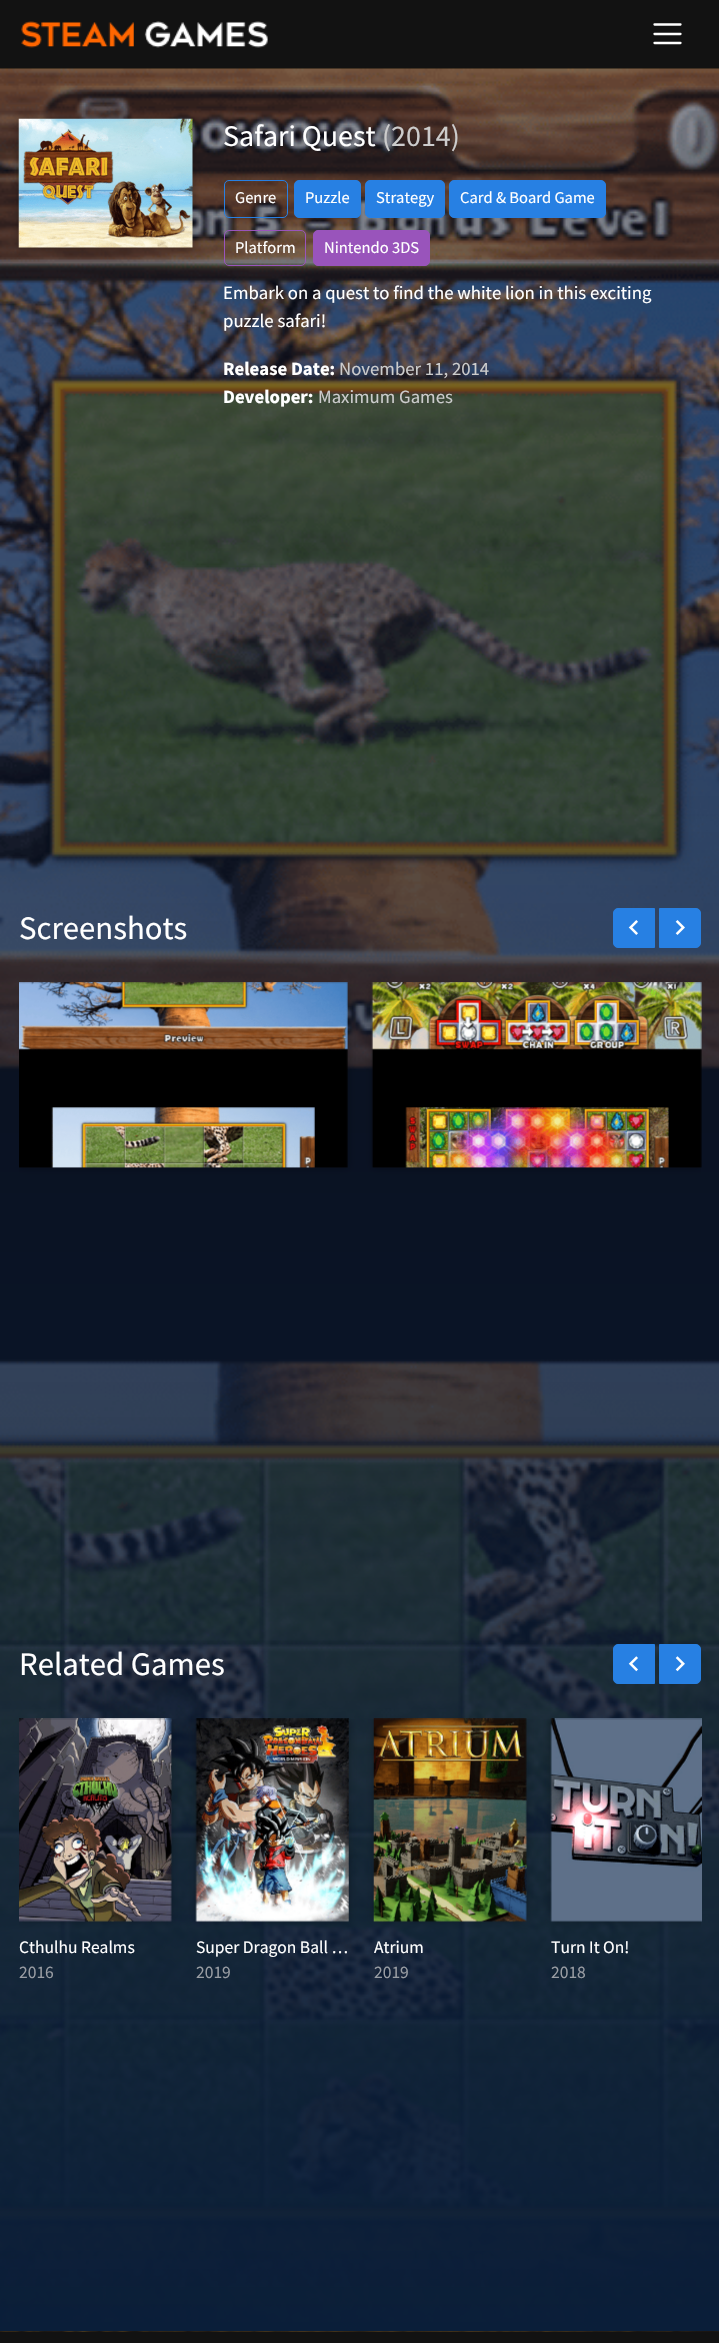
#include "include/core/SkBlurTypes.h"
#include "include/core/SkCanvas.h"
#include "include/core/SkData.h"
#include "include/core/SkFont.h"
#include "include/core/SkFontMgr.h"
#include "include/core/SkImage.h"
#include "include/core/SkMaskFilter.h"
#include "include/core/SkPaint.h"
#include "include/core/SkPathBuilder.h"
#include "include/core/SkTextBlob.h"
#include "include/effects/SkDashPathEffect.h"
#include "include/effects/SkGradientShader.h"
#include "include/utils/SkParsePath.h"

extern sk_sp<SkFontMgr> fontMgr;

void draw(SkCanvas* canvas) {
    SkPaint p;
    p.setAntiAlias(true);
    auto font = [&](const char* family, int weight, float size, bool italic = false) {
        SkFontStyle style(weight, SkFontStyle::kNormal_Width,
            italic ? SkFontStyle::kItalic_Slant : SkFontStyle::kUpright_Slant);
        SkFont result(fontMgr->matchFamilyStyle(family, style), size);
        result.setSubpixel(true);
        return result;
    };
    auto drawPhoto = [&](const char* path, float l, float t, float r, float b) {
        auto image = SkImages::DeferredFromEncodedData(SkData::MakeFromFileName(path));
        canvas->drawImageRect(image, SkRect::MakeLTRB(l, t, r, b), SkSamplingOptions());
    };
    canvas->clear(0xFF121212);
    drawPhoto("media/1.png", 21, 21, 268, 48);
    p.setStyle(SkPaint::kStroke_Style);
    p.setStrokeWidth(2.3f);
    p.setStrokeCap(SkPaint::kRound_Cap);
    p.setColor(0xFFFFFFFF);
    canvas->drawPath(SkPathBuilder().moveTo(654.5f, 24.5f).lineTo(680.5f, 24.5f).moveTo(654.5f, 34).lineTo(680.5f, 34).moveTo(654.5f, 43).lineTo(680.5f, 43).detach(), p);
    drawPhoto("media/2.png", 0, 68, 719, 2332);
    p.setStyle(SkPaint::kFill_Style);
    p.setColor(0x45000000);
    p.setMaskFilter(SkMaskFilter::MakeBlur(kNormal_SkBlurStyle, 4));
    canvas->drawRect(SkRect::MakeLTRB(19, 119, 193, 248), p);
    p.setMaskFilter(nullptr);
    drawPhoto("media/3.png", 18, 118, 193, 248);
    auto font1 = font("Source Sans Pro", 400, 30);
    p.setColor(0xFFFFFFFF);
    canvas->drawString("Safari Quest", 223, 146, font1, p);
    p.setColor(0xFFCCCCCC);
    canvas->drawString("(2014)", 382, 146, font1, p);
    p.setStyle(SkPaint::kStroke_Style);
    p.setStrokeWidth(1);
    p.setStrokeCap(SkPaint::kButt_Cap);
    p.setColor(0xFF2780E3);
    canvas->drawRoundRect(SkRect::MakeLTRB(224.5f, 180.5f, 287.5f, 217.5f), 4.5f, 4.5f, p);
    auto font2 = font("Source Sans Pro", 400, 16.5f);
    p.setStyle(SkPaint::kFill_Style);
    p.setColor(0xFFFFFFFF);
    canvas->drawString("Genre", 235, 203, font2, p);
    p.setColor(0xFF2780E3);
    canvas->drawRoundRect(SkRect::MakeLTRB(294.5f, 180.5f, 360.5f, 217.5f), 4.5f, 4.5f, p);
    p.setStyle(SkPaint::kStroke_Style);
    canvas->drawRoundRect(SkRect::MakeLTRB(294.5f, 180.5f, 360.5f, 217.5f), 4.5f, 4.5f, p);
    p.setStyle(SkPaint::kFill_Style);
    p.setColor(0xFFFFFFFF);
    canvas->drawString("Puzzle", 305, 203, font2, p);
    p.setColor(0xFF2780E3);
    canvas->drawRoundRect(SkRect::MakeLTRB(365.5f, 180.5f, 444.5f, 217.5f), 4.5f, 4.5f, p);
    p.setStyle(SkPaint::kStroke_Style);
    canvas->drawRoundRect(SkRect::MakeLTRB(365.5f, 180.5f, 444.5f, 217.5f), 4.5f, 4.5f, p);
    p.setStyle(SkPaint::kFill_Style);
    p.setColor(0xFFFFFFFF);
    canvas->drawString("Strategy", 376, 203, font2, p);
    p.setColor(0xFF2780E3);
    canvas->drawRoundRect(SkRect::MakeLTRB(449.5f, 180.5f, 605.5f, 217.5f), 4.5f, 4.5f, p);
    p.setStyle(SkPaint::kStroke_Style);
    canvas->drawRoundRect(SkRect::MakeLTRB(449.5f, 180.5f, 605.5f, 217.5f), 4.5f, 4.5f, p);
    p.setStyle(SkPaint::kFill_Style);
    p.setColor(0xFFFFFFFF);
    canvas->drawString("Card & Board Game", 460, 203, font2, p);
    p.setStyle(SkPaint::kStroke_Style);
    p.setColor(0xFF9954BB);
    canvas->drawRoundRect(SkRect::MakeLTRB(224.5f, 230.5f, 305.5f, 265.5f), 4.5f, 4.5f, p);
    p.setStyle(SkPaint::kFill_Style);
    p.setColor(0xFFFFFFFF);
    canvas->drawString("Platform", 235, 253, font2, p);
    p.setColor(0xFF9954BB);
    canvas->drawRoundRect(SkRect::MakeLTRB(313.5f, 230.5f, 429.5f, 265.5f), 4.5f, 4.5f, p);
    p.setStyle(SkPaint::kStroke_Style);
    canvas->drawRoundRect(SkRect::MakeLTRB(313.5f, 230.5f, 429.5f, 265.5f), 4.5f, 4.5f, p);
    p.setStyle(SkPaint::kFill_Style);
    p.setColor(0xFFFFFFFF);
    canvas->drawString("Nintendo 3DS", 324, 253, font2, p);
    auto font3 = font("Source Sans Pro", 400, 18.75f);
    canvas->drawString("Embark on a quest to find the white lion in this exciting", 223, 299, font3, p);
    canvas->drawString("puzzle safari!", 223, 327, font3, p);
    auto font4 = font("Source Sans Pro", 700, 18.75f);
    canvas->drawString("Release Date:", 223, 375, font4, p);
    p.setColor(0xFFCCCCCC);
    canvas->drawString("November 11, 2014", 339, 375, font3, p);
    p.setColor(0xFFFFFFFF);
    canvas->drawString("Developer:", 223, 403, font4, p);
    p.setColor(0xFFCCCCCC);
    canvas->drawString("Maximum Games", 318, 403, font3, p);
    auto font5 = font("Source Sans Pro", 400, 32.75f);
    p.setColor(0xFFFFFFFF);
    canvas->drawString("Screenshots", 19, 939, font5, p);
    p.setColor(0xFF2780E3);
    canvas->drawPath(SkPathBuilder().moveTo(618, 908.5f).lineTo(654.5f, 908.5f).lineTo(654.5f, 947.5f).lineTo(618, 947.5f).cubicTo(615.5f, 947.5f, 613.5f, 945.5f, 613.5f, 943).lineTo(613.5f, 913).cubicTo(613.5f, 910.5f, 615.5f, 908.5f, 618, 908.5f).close().detach(), p);
    p.setStyle(SkPaint::kStroke_Style);
    canvas->drawPath(SkPathBuilder().moveTo(618, 908.5f).lineTo(654.5f, 908.5f).lineTo(654.5f, 947.5f).lineTo(618, 947.5f).cubicTo(615.5f, 947.5f, 613.5f, 945.5f, 613.5f, 943).lineTo(613.5f, 913).cubicTo(613.5f, 910.5f, 615.5f, 908.5f, 618, 908.5f).close().detach(), p);
    drawPhoto("media/4.png", 628, 920, 638, 935);
    p.setStyle(SkPaint::kFill_Style);
    canvas->drawPath(SkPathBuilder().moveTo(659.5f, 908.5f).lineTo(696, 908.5f).cubicTo(698.5f, 908.5f, 700.5f, 910.5f, 700.5f, 913).lineTo(700.5f, 943).cubicTo(700.5f, 945.5f, 698.5f, 947.5f, 696, 947.5f).lineTo(659.5f, 947.5f).close().detach(), p);
    p.setStyle(SkPaint::kStroke_Style);
    canvas->drawPath(SkPathBuilder().moveTo(659.5f, 908.5f).lineTo(696, 908.5f).cubicTo(698.5f, 908.5f, 700.5f, 910.5f, 700.5f, 913).lineTo(700.5f, 943).cubicTo(700.5f, 945.5f, 698.5f, 947.5f, 696, 947.5f).lineTo(659.5f, 947.5f).close().detach(), p);
    drawPhoto("media/5.png", 675, 920, 685, 935);
    canvas->save();
    canvas->clipRect(SkRect::MakeLTRB(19, 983, 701, 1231));
    p.setStyle(SkPaint::kFill_Style);
    p.setColor(0x45000000);
    p.setMaskFilter(SkMaskFilter::MakeBlur(kNormal_SkBlurStyle, 4));
    canvas->drawRect(SkRect::MakeLTRB(19, 983, 348, 1168), p);
    p.setMaskFilter(nullptr);
    canvas->restore();
    drawPhoto("media/6.png", 19, 982, 348, 1168);
    canvas->save();
    canvas->clipRect(SkRect::MakeLTRB(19, 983, 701, 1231));
    p.setMaskFilter(SkMaskFilter::MakeBlur(kNormal_SkBlurStyle, 4));
    canvas->drawRect(SkRect::MakeLTRB(373, 983, 701, 1168), p);
    p.setMaskFilter(nullptr);
    canvas->restore();
    drawPhoto("media/7.png", 371, 982, 702, 1168);
    p.setColor(0xFFFFFFFF);
    canvas->drawString("Related Games", 19, 1675, font5, p);
    p.setColor(0xFF2780E3);
    canvas->drawPath(SkPathBuilder().moveTo(618, 1644.5f).lineTo(654.5f, 1644.5f).lineTo(654.5f, 1683.5f).lineTo(618, 1683.5f).cubicTo(615.5f, 1683.5f, 613.5f, 1681.5f, 613.5f, 1679).lineTo(613.5f, 1649).cubicTo(613.5f, 1646.5f, 615.5f, 1644.5f, 618, 1644.5f).close().detach(), p);
    p.setStyle(SkPaint::kStroke_Style);
    canvas->drawPath(SkPathBuilder().moveTo(618, 1644.5f).lineTo(654.5f, 1644.5f).lineTo(654.5f, 1683.5f).lineTo(618, 1683.5f).cubicTo(615.5f, 1683.5f, 613.5f, 1681.5f, 613.5f, 1679).lineTo(613.5f, 1649).cubicTo(613.5f, 1646.5f, 615.5f, 1644.5f, 618, 1644.5f).close().detach(), p);
    drawPhoto("media/8.png", 628, 1656, 638, 1672);
    p.setStyle(SkPaint::kFill_Style);
    canvas->drawPath(SkPathBuilder().moveTo(659.5f, 1644.5f).lineTo(696, 1644.5f).cubicTo(698.5f, 1644.5f, 700.5f, 1646.5f, 700.5f, 1649).lineTo(700.5f, 1679).cubicTo(700.5f, 1681.5f, 698.5f, 1683.5f, 696, 1683.5f).lineTo(659.5f, 1683.5f).close().detach(), p);
    p.setStyle(SkPaint::kStroke_Style);
    canvas->drawPath(SkPathBuilder().moveTo(659.5f, 1644.5f).lineTo(696, 1644.5f).cubicTo(698.5f, 1644.5f, 700.5f, 1646.5f, 700.5f, 1649).lineTo(700.5f, 1679).cubicTo(700.5f, 1681.5f, 698.5f, 1683.5f, 696, 1683.5f).lineTo(659.5f, 1683.5f).close().detach(), p);
    drawPhoto("media/9.png", 675, 1656, 685, 1672);
    canvas->save();
    canvas->clipRect(SkRect::MakeLTRB(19, 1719, 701, 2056));
    p.setStyle(SkPaint::kFill_Style);
    p.setColor(0x45000000);
    p.setMaskFilter(SkMaskFilter::MakeBlur(kNormal_SkBlurStyle, 4));
    canvas->drawRect(SkRect::MakeLTRB(19, 1719, 171, 1921), p);
    p.setMaskFilter(nullptr);
    canvas->restore();
    drawPhoto("media/10.png", 19, 1718, 172, 1922);
    auto font6 = font("Source Sans Pro", 400, 17.5f);
    p.setColor(0xFFFFFFFF);
    canvas->drawString("Cthulhu Realms", 19, 1953, font6, p);
    p.setColor(0xFF999DA3);
    canvas->drawString("2016", 19, 1978, font6, p);
    canvas->save();
    canvas->clipRect(SkRect::MakeLTRB(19, 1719, 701, 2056));
    p.setColor(0x45000000);
    p.setMaskFilter(SkMaskFilter::MakeBlur(kNormal_SkBlurStyle, 4));
    canvas->drawRect(SkRect::MakeLTRB(196, 1719, 349, 1921), p);
    p.setMaskFilter(nullptr);
    canvas->restore();
    drawPhoto("media/11.png", 195, 1718, 349, 1922);
    p.setColor(0xFFFFFFFF);
    canvas->drawString("Super Dragon Ball …", 196, 1953, font6, p);
    p.setColor(0xFF999DA3);
    canvas->drawString("2019", 196, 1978, font6, p);
    canvas->save();
    canvas->clipRect(SkRect::MakeLTRB(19, 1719, 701, 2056));
    p.setColor(0x45000000);
    p.setMaskFilter(SkMaskFilter::MakeBlur(kNormal_SkBlurStyle, 4));
    canvas->drawRect(SkRect::MakeLTRB(374, 1719, 526, 1921), p);
    p.setMaskFilter(nullptr);
    canvas->restore();
    drawPhoto("media/12.png", 373, 1718, 527, 1922);
    p.setColor(0xFFFFFFFF);
    canvas->drawString("Atrium", 374, 1953, font6, p);
    p.setColor(0xFF999DA3);
    canvas->drawString("2019", 374, 1978, font6, p);
    canvas->save();
    canvas->clipRect(SkRect::MakeLTRB(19, 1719, 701, 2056));
    p.setColor(0x45000000);
    p.setMaskFilter(SkMaskFilter::MakeBlur(kNormal_SkBlurStyle, 4));
    canvas->drawRect(SkRect::MakeLTRB(551, 1719, 704, 1921), p);
    p.setMaskFilter(nullptr);
    canvas->restore();
    drawPhoto("media/13.png", 550, 1718, 702, 1922);
    p.setColor(0xFFFFFFFF);
    canvas->drawString("Turn It On!", 551, 1953, font6, p);
    p.setColor(0xFF999DA3);
    canvas->drawString("2018", 551, 1978, font6, p);
}
